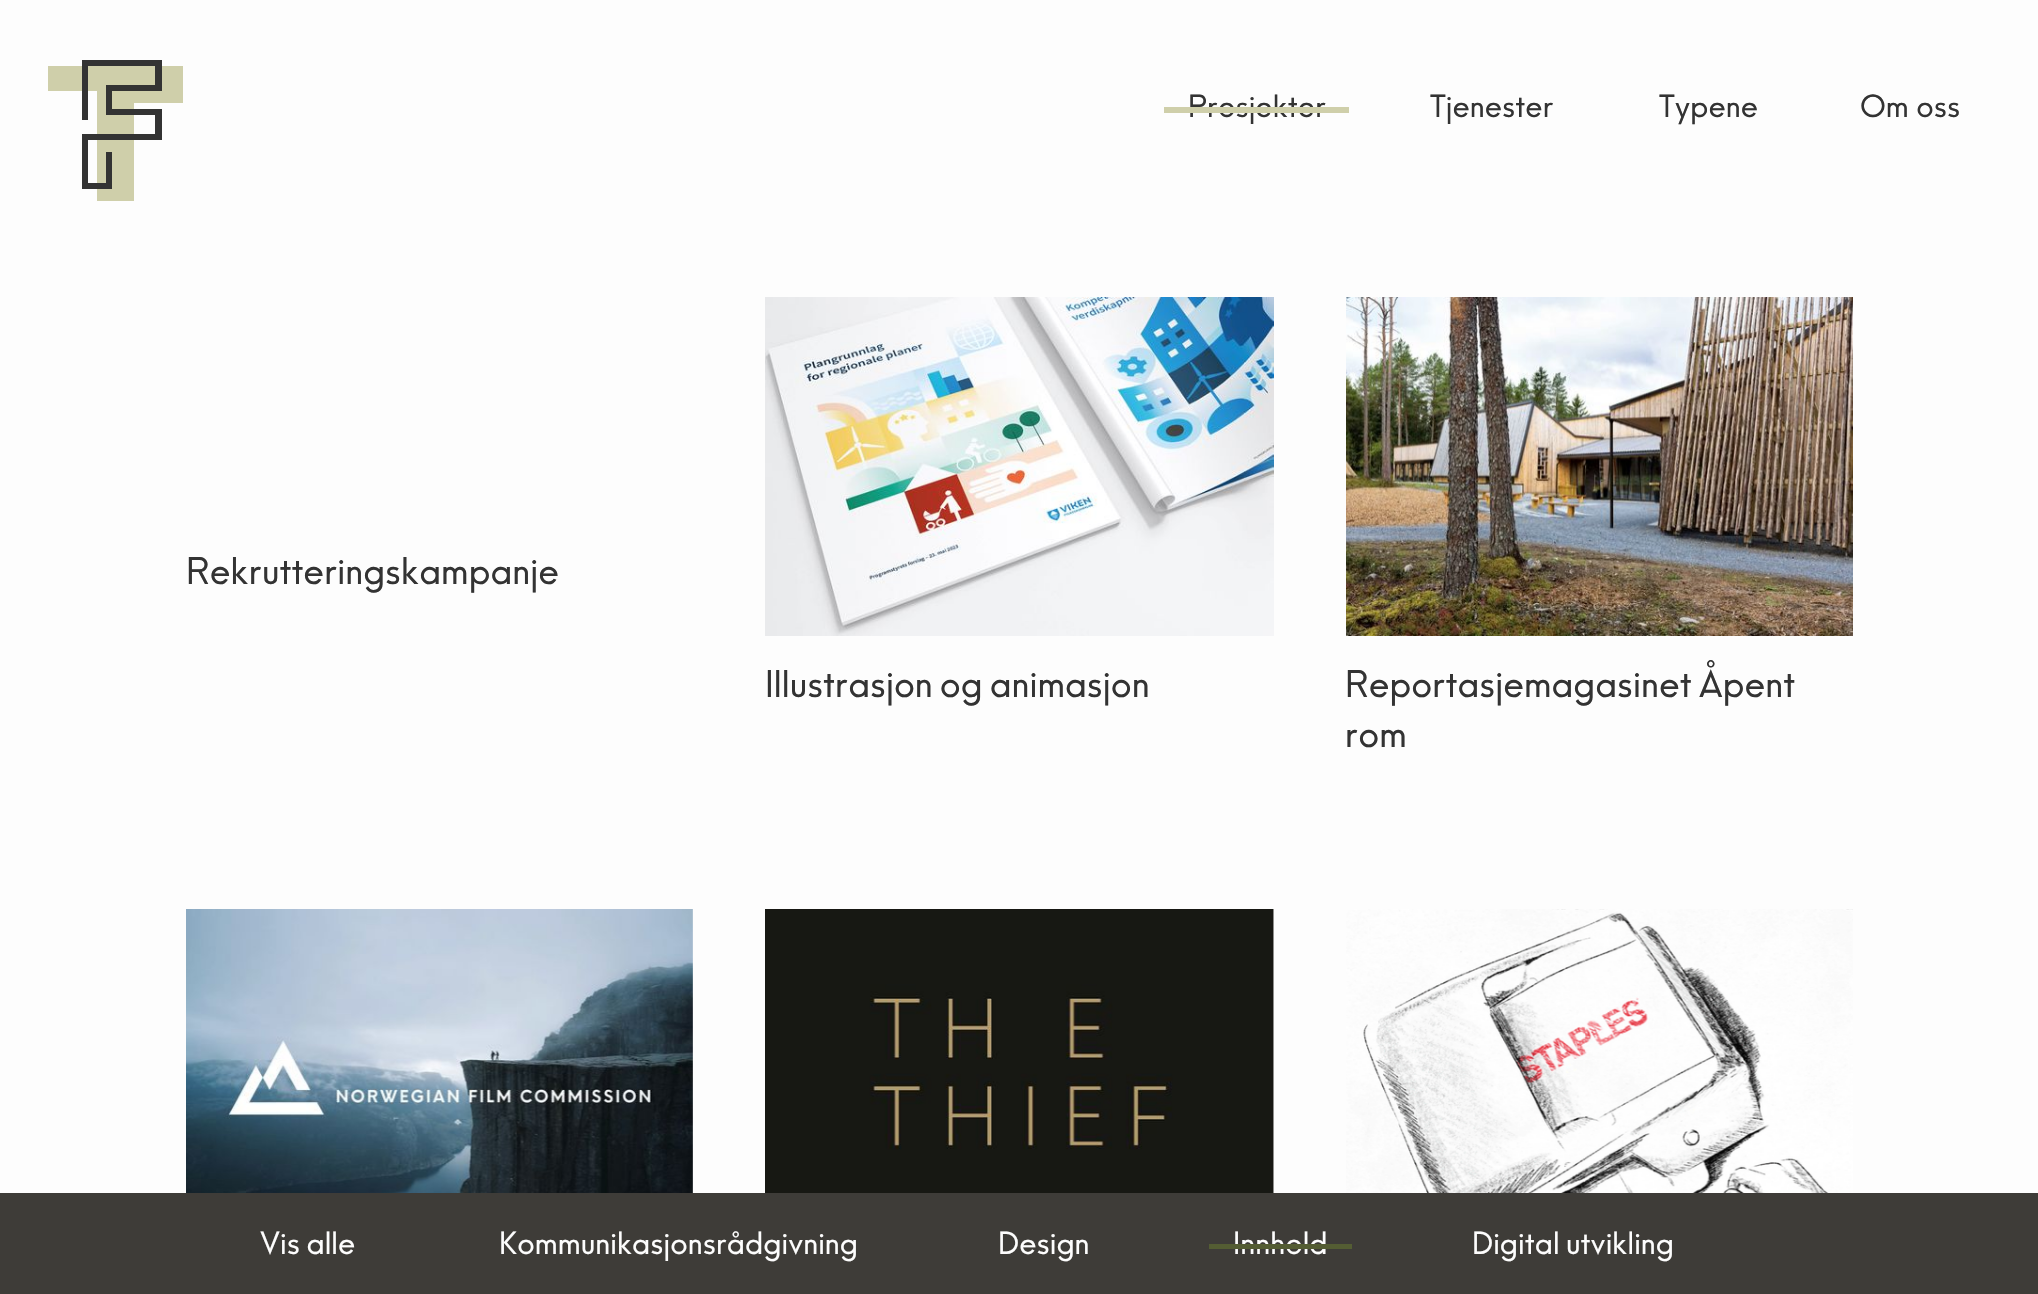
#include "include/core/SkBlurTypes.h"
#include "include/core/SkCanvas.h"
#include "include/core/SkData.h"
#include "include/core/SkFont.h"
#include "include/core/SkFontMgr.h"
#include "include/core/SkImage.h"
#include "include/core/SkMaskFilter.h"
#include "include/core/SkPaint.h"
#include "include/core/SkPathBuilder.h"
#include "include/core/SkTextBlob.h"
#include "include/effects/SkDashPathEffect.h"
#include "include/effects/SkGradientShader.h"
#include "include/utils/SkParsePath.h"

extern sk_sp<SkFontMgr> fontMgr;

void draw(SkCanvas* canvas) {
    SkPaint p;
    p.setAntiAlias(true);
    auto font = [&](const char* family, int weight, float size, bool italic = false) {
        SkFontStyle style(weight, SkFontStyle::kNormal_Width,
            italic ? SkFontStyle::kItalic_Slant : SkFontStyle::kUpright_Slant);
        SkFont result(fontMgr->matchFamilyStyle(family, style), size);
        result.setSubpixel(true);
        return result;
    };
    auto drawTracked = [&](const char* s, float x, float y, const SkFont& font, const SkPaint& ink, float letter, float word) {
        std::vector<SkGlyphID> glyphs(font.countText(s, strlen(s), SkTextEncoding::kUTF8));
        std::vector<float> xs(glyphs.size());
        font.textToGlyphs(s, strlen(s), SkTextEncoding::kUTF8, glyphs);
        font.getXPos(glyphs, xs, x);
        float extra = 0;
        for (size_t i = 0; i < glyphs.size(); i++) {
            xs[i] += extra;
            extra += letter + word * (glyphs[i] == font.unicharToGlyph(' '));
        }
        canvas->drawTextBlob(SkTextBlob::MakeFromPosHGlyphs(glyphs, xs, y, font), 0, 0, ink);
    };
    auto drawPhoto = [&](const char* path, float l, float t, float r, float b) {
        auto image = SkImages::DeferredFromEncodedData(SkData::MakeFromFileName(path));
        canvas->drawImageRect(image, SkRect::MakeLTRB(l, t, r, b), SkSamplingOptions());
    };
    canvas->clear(0xFFFDFDFD);
    p.setColor(0xFFCFCFAA);
    canvas->drawPath(SkPathBuilder().moveTo(97, 91).lineTo(97, 201).lineTo(134, 201).lineTo(134, 103).lineTo(183, 103).lineTo(183, 66).lineTo(48, 66).lineTo(48, 91).close().detach(), p);
    p.setColor(0xFF333333);
    canvas->drawPath(SkPathBuilder().moveTo(162, 91).lineTo(162, 60).lineTo(82, 60).lineTo(82, 120).lineTo(88, 120).lineTo(88, 66).lineTo(155, 66).lineTo(155, 85).lineTo(106, 85).lineTo(106, 115).lineTo(155, 115).lineTo(155, 134).lineTo(82, 134).lineTo(82, 189).lineTo(112, 189).lineTo(112, 152).lineTo(106, 152).lineTo(106, 183).lineTo(88, 183).lineTo(88, 140).lineTo(162, 140).lineTo(162, 109).lineTo(112, 109).lineTo(112, 91).close().detach(), p);
    auto font1 = font("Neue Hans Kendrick", 400, 30);
    canvas->drawString("Prosjekter", 1188, 117, font1, p);
    p.setColor(0xFFCFCFAA);
    canvas->drawRect(SkRect::MakeLTRB(1164, 107, 1349, 113), p);
    p.setColor(0xFF333333);
    {
        const struct { const char* s; float x, y; } items[] = {
            {"Tjenester", 1430, 117},
            {"Typene", 1659, 117},
            {"Om oss", 1860, 117},
        };
        for (auto [s, x, y] : items) {
            canvas->drawString(s, x, y, font1, p);
        }
    }
    auto font2 = font("Neue Hans Kendrick", 400, 36);
    canvas->drawString("Rekrutteringskampanje", 186, 584, font2, p);
    drawPhoto("media/1.png", 765, 297, 1274, 636);
    drawTracked("Illustrasjon og animasjon", 765, 697, font2, p, 0, -2);
    drawPhoto("media/2.png", 1346, 297, 1853, 636);
    drawTracked("Reportasjemagasinet Åpent", 1345, 697, font2, p, 0, -2);
    canvas->drawString("rom", 1345, 747, font2, p);
    drawPhoto("media/3.png", 186, 909, 693, 1193);
    drawPhoto("media/4.png", 765, 909, 1274, 1193);
    drawPhoto("media/5.png", 1346, 909, 1853, 1193);
    p.setColor(0xFF3E3C38);
    canvas->drawRect(SkRect::MakeLTRB(0, 1193, 2038, 1294), p);
    p.setColor(0xFFFDFDFD);
    drawTracked("Vis alle", 260, 1254, font1, p, 0, -1);
    {
        const struct { const char* s; float x, y; } items[] = {
            {"Kommunikasjonsrådgivning", 499, 1254},
            {"Design", 998, 1254},
            {"Innhold", 1233, 1254},
        };
        for (auto [s, x, y] : items) {
            canvas->drawString(s, x, y, font1, p);
        }
    }
    p.setColor(0xFF545D33);
    canvas->drawRect(SkRect::MakeLTRB(1209, 1244, 1352, 1249), p);
    p.setColor(0xFFFDFDFD);
    drawTracked("Digital utvikling", 1472, 1254, font1, p, 0, -1);
}
